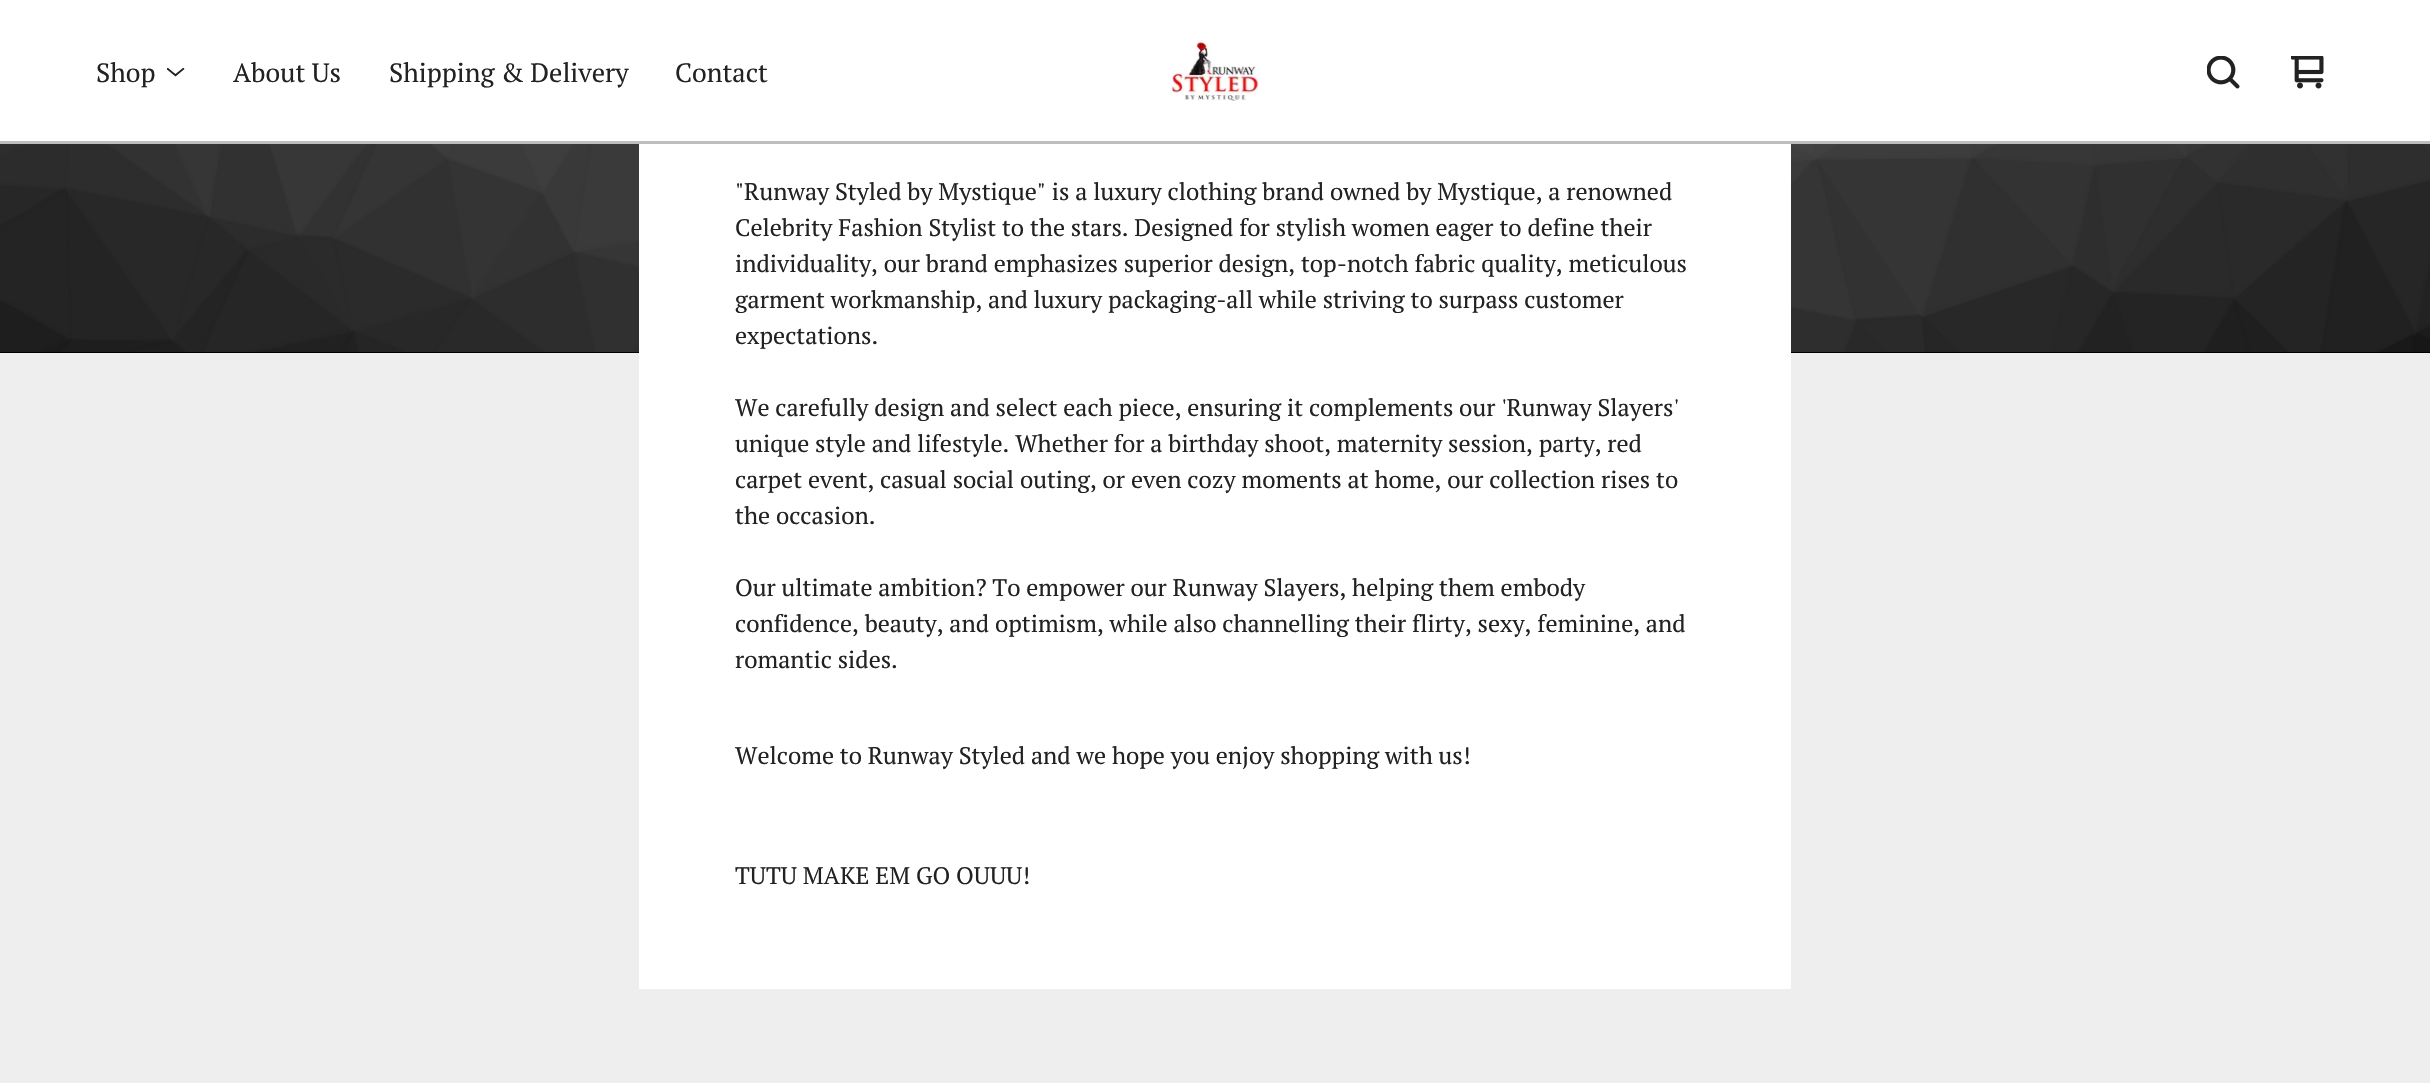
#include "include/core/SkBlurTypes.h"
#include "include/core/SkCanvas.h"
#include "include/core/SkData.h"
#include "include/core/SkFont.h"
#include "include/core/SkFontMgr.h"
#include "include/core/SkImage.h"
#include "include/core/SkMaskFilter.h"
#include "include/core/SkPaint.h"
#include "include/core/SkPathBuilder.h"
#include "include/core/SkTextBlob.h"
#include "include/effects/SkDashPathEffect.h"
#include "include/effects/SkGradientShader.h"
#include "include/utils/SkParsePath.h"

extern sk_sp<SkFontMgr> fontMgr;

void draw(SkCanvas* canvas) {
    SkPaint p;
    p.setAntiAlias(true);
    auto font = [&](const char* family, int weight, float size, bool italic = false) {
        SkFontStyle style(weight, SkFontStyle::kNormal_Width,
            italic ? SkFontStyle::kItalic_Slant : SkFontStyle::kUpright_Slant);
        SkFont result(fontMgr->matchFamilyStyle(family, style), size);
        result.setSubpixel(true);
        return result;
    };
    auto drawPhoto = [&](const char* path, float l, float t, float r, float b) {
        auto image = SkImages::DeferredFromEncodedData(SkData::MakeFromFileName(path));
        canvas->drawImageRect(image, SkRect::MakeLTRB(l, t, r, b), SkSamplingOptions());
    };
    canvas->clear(0xFFEEEEEE);
    p.setColor(0xFFFFFFFF);
    canvas->drawRect(SkRect::MakeLTRB(0, 0, 2430, 141), p);
    p.setColor(0xFFBDBDBD);
    canvas->drawRect(SkRect::MakeLTRB(0, 141, 2430, 144), p);
    auto font1 = font("PT Serif", 400, 26.5f);
    p.setColor(0xFF222222);
    canvas->drawString("Shop", 96, 82, font1, p);
    canvas->save();
    canvas->clipRect(SkRect::MakeLTRB(167, 68, 185, 77));
    canvas->drawPath(SkPathBuilder().moveTo(184.5f, 69).lineTo(175.5f, 76.5f).lineTo(166.5f, 69).lineTo(167.5f, 67.5f).lineTo(175.5f, 74).lineTo(183.5f, 67.5f).close().detach(), p);
    canvas->restore();
    {
        const struct { const char* s; float x, y; } items[] = {
            {"About Us", 233, 82},
            {"Shipping & Delivery", 389, 82},
            {"Contact", 675, 82},
        };
        for (auto [s, x, y] : items) {
            canvas->drawString(s, x, y, font1, p);
        }
    }
    drawPhoto("media/1.png", 1170, 39, 1259, 101);
    drawPhoto("media/2.png", 2207, 56, 2240, 89);
    drawPhoto("media/3.png", 2291, 56, 2324, 89);
    p.setColor(0xFF000000);
    canvas->drawRect(SkRect::MakeLTRB(0, 144, 2430, 353), p);
    drawPhoto("media/4.png", 0, 144, 2430, 352);
    p.setColor(0xFFFFFFFF);
    canvas->drawRect(SkRect::MakeLTRB(639, 144, 1791, 989), p);
    auto font2 = font("PT Serif", 400, 24);
    p.setColor(0xFF222222);
    {
        const struct { const char* s; float x, y; } items[] = {
            {"\"Runway Styled by Mystique\" is a luxury clothing brand owned by Mystique, a renowned", 735, 200},
            {"Celebrity Fashion Stylist to the stars. Designed for stylish women eager to define their", 735, 236},
            {"individuality, our brand emphasizes superior design, top-notch fabric quality, meticulous", 735, 272},
            {"garment workmanship, and luxury packaging-all while striving to surpass customer", 735, 308},
            {"expectations.", 735, 344},
            {"We carefully design and select each piece, ensuring it complements our 'Runway Slayers'", 735, 416},
            {"unique style and lifestyle. Whether for a birthday shoot, maternity session, party, red", 735, 452},
            {"carpet event, casual social outing, or even cozy moments at home, our collection rises to", 735, 488},
            {"the occasion.", 735, 524},
            {"Our ultimate ambition? To empower our Runway Slayers, helping them embody", 735, 596},
            {"confidence, beauty, and optimism, while also channelling their flirty, sexy, feminine, and", 735, 632},
            {"romantic sides.", 735, 668},
            {"Welcome to Runway Styled and we hope you enjoy shopping with us!", 735, 764},
            {"TUTU MAKE EM GO OUUU!", 735, 884},
        };
        for (auto [s, x, y] : items) {
            canvas->drawString(s, x, y, font2, p);
        }
    }
}
